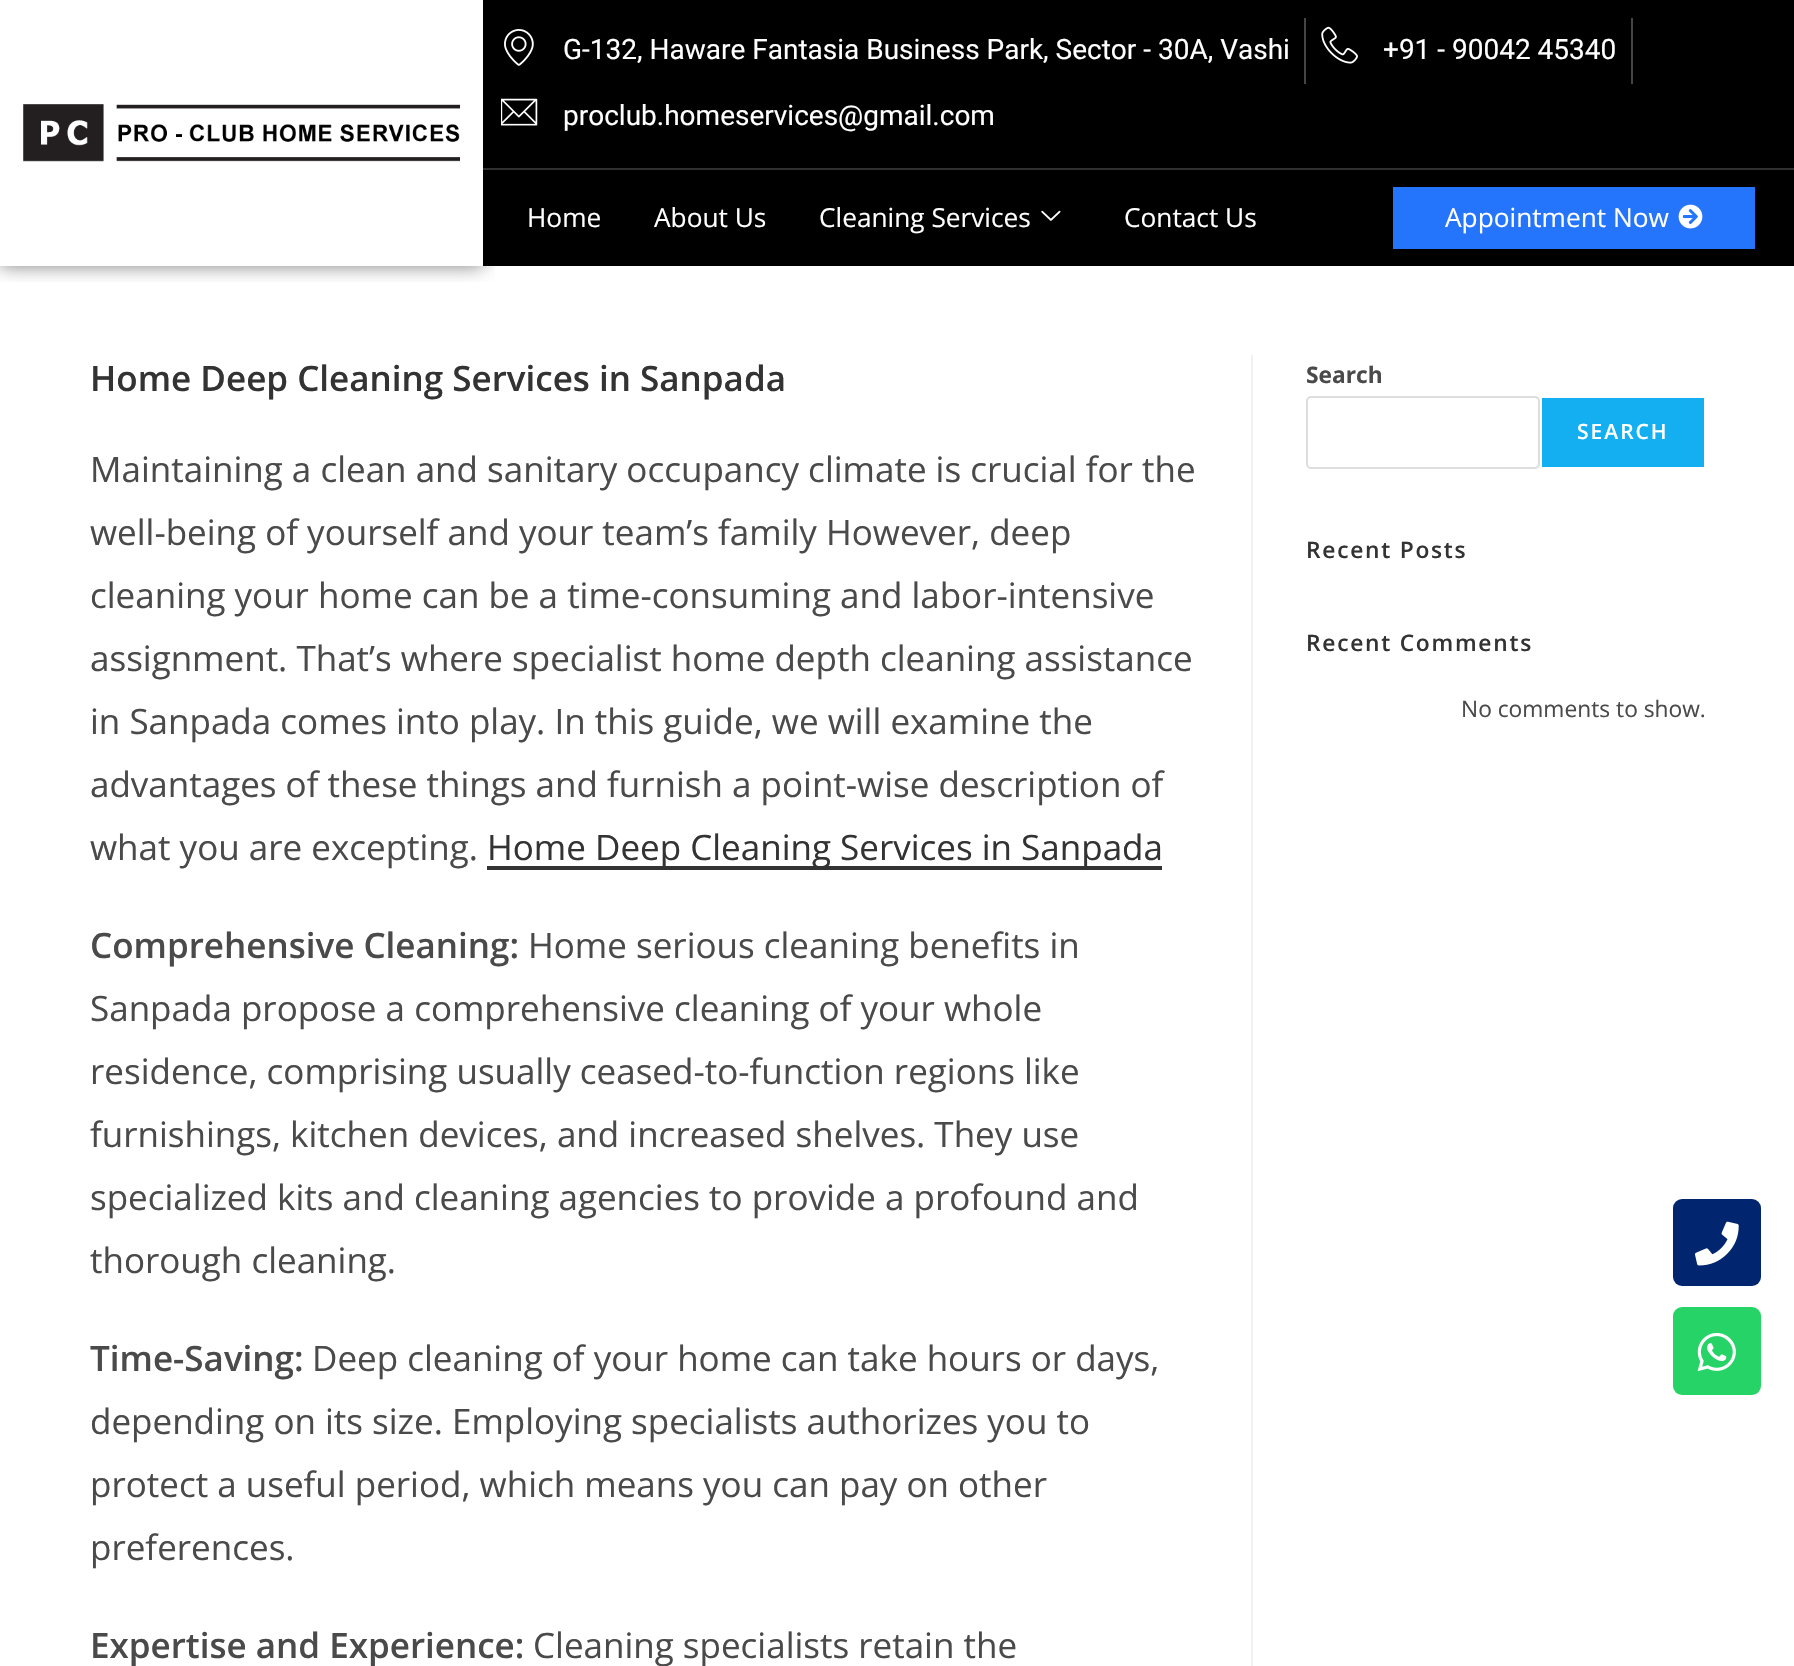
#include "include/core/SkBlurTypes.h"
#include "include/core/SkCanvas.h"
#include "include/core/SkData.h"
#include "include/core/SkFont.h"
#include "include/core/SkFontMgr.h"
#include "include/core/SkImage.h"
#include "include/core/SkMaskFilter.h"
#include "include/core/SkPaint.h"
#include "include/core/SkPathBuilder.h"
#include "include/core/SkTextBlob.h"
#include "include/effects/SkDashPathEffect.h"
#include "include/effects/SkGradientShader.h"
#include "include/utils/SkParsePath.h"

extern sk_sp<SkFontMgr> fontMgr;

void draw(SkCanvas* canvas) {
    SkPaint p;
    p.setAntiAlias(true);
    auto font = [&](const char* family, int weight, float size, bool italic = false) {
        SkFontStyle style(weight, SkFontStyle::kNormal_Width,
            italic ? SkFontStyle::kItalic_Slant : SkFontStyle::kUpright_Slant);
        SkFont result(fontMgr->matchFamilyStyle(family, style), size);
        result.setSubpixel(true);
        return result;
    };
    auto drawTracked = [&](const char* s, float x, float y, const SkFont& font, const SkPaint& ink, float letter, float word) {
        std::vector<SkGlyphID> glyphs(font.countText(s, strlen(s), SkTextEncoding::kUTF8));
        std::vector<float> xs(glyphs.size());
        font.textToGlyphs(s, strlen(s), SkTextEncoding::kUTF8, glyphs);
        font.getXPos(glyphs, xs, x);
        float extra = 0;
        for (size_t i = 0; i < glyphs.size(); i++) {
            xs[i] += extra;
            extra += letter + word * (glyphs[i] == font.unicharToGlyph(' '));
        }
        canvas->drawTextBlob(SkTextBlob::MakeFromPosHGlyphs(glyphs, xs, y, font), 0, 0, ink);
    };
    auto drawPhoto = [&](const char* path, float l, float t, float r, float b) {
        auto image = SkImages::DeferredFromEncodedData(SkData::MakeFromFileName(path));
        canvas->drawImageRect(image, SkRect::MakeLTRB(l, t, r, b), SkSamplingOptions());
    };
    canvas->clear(0xFFFFFFFF);
    canvas->save();
    canvas->clipRect(SkRect::MakeLTRB(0, 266, 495, 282));
    p.setColor(0x80000000);
    p.setMaskFilter(SkMaskFilter::MakeBlur(kNormal_SkBlurStyle, 9));
    canvas->drawRect(SkRect::MakeLTRB(0, 0, 483, 266), p);
    p.setMaskFilter(nullptr);
    canvas->restore();
    drawPhoto("media/1.png", 23, 104, 460, 162);
    p.setColor(0xFF000000);
    canvas->drawRect(SkRect::MakeLTRB(483, 0, 1794, 266), p);
    p.setColor(0xFF303030);
    canvas->drawRect(SkRect::MakeLTRB(483, 168, 1794, 170), p);
    drawPhoto("media/2.png", 504, 29, 534, 66);
    auto font1 = font("Roboto", 400, 28);
    p.setColor(0xFFFFFFFF);
    canvas->drawString("G-132, Haware Fantasia Business Park, Sector - 30A, Vashi", 563, 59, font1, p);
    p.setColor(0xFF454545);
    canvas->drawRect(SkRect::MakeLTRB(1304, 18, 1306, 84), p);
    drawPhoto("media/3.png", 1321, 26, 1358, 64);
    p.setColor(0xFFFFFFFF);
    canvas->drawString("+91 - 90042 45340", 1383, 59, font1, p);
    p.setColor(0xFF454545);
    canvas->drawRect(SkRect::MakeLTRB(1631, 18, 1633, 84), p);
    drawPhoto("media/4.png", 501, 98, 538, 126);
    p.setColor(0xFFFFFFFF);
    canvas->drawString("proclub.homeservices@gmail.com", 563, 125, font1, p);
    auto font2 = font("Open Sans", 400, 26.25f);
    {
        const struct { const char* s; float x, y; } items[] = {
            {"Home", 527, 227},
            {"About Us", 654, 227},
            {"Cleaning Services", 819, 227},
        };
        for (auto [s, x, y] : items) {
            canvas->drawString(s, x, y, font2, p);
        }
    }
    drawPhoto("media/5.png", 1041, 210, 1061, 221);
    canvas->drawString("Contact Us", 1124, 227, font2, p);
    p.setColor(0xFF2575FC);
    canvas->drawRect(SkRect::MakeLTRB(1393, 187, 1755, 249), p);
    p.setColor(0xFFFFFFFF);
    canvas->drawString("Appointment Now", 1445, 227, font2, p);
    drawPhoto("media/6.png", 1678, 204, 1703, 229);
    p.setColor(0xFF01266F);
    canvas->drawRoundRect(SkRect::MakeLTRB(1673, 1199, 1761, 1286), 9, 9, p);
    drawPhoto("media/7.png", 1695, 1221, 1739, 1266);
    p.setColor(0xFF25D366);
    canvas->drawRoundRect(SkRect::MakeLTRB(1673, 1307, 1761, 1395), 9, 9, p);
    drawPhoto("media/8.png", 1697, 1332, 1736, 1372);
    p.setColor(0xFFF1F1F1);
    canvas->drawRect(SkRect::MakeLTRB(1251, 355, 1253, 1666), p);
    auto font3 = font("Open Sans", 600, 35);
    p.setColor(0xFF333333);
    canvas->drawString("Home Deep Cleaning Services in Sanpada", 90, 391, font3, p);
    auto font4 = font("Open Sans", 400, 35);
    p.setColor(0xFF4A4A4A);
    {
        const struct { const char* s; float x, y; } items[] = {
            {"Maintaining a clean and sanitary occupancy climate is crucial for the", 90, 482},
            {"well-being of yourself and your team’s family However, deep", 90, 545},
            {"cleaning your home can be a time-consuming and labor-intensive", 90, 608},
            {"assignment. That’s where specialist home depth cleaning assistance", 90, 671},
            {"in Sanpada comes into play. In this guide, we will examine the", 90, 734},
            {"advantages of these things and furnish a point-wise description of", 90, 797},
            {"what you are excepting.", 90, 860},
        };
        for (auto [s, x, y] : items) {
            canvas->drawString(s, x, y, font4, p);
        }
    }
    p.setColor(0xFF333333);
    canvas->drawRect(SkRect::MakeLTRB(487, 866, 1162, 870), p);
    canvas->drawString("Home Deep Cleaning Services in Sanpada", 487, 860, font4, p);
    p.setColor(0xFF4A4A4A);
    canvas->drawString("Comprehensive Cleaning:", 90, 958, font3, p);
    {
        const struct { const char* s; float x, y; } items[] = {
            {"Home serious cleaning benefits in", 528, 958},
            {"Sanpada propose a comprehensive cleaning of your whole", 90, 1021},
            {"residence, comprising usually ceased-to-function regions like", 90, 1084},
            {"furnishings, kitchen devices, and increased shelves. They use", 90, 1147},
            {"specialized kits and cleaning agencies to provide a profound and", 90, 1210},
            {"thorough cleaning.", 90, 1273},
        };
        for (auto [s, x, y] : items) {
            canvas->drawString(s, x, y, font4, p);
        }
    }
    canvas->drawString("Time-Saving:", 90, 1371, font3, p);
    {
        const struct { const char* s; float x, y; } items[] = {
            {"Deep cleaning of your home can take hours or days,", 312, 1371},
            {"depending on its size. Employing specialists authorizes you to", 90, 1434},
            {"protect a useful period, which means you can pay on other", 90, 1497},
            {"preferences.", 90, 1560},
        };
        for (auto [s, x, y] : items) {
            canvas->drawString(s, x, y, font4, p);
        }
    }
    canvas->drawString("Expertise and Experience:", 90, 1658, font3, p);
    canvas->drawString("Cleaning specialists retain the", 533, 1658, font4, p);
    auto font5 = font("Open Sans", 700, 22.75f);
    canvas->drawString("Search", 1306, 383, font5, p);
    p.setStyle(SkPaint::kStroke_Style);
    p.setStrokeWidth(2);
    p.setColor(0xFFDDDDDD);
    canvas->drawRoundRect(SkRect::MakeLTRB(1307, 397, 1539, 468), 4, 4, p);
    p.setStyle(SkPaint::kFill_Style);
    p.setColor(0xFF13AFF0);
    canvas->drawRect(SkRect::MakeLTRB(1542, 398, 1704, 467), p);
    auto font6 = font("Open Sans", 600, 21);
    p.setColor(0xFFFFFFFF);
    drawTracked("SEARCH", 1577, 439, font6, p, 2, 0);
    auto font7 = font("Open Sans", 600, 22.75f);
    p.setColor(0xFF333333);
    drawTracked("Recent Posts", 1306, 558, font7, p, 1.75f, 0);
    drawTracked("Recent Comments", 1306, 651, font7, p, 1.75f, 0);
    auto font8 = font("Open Sans", 400, 22.75f);
    p.setColor(0xFF4A4A4A);
    canvas->drawString("No comments to show.", 1461, 717, font8, p);
}
